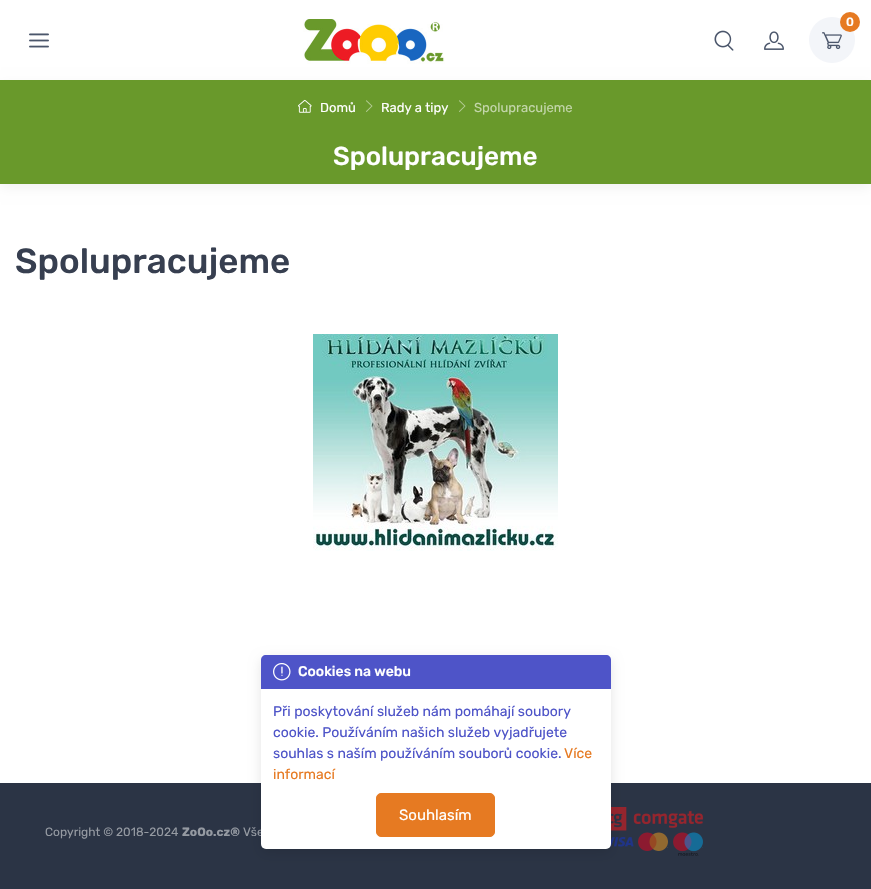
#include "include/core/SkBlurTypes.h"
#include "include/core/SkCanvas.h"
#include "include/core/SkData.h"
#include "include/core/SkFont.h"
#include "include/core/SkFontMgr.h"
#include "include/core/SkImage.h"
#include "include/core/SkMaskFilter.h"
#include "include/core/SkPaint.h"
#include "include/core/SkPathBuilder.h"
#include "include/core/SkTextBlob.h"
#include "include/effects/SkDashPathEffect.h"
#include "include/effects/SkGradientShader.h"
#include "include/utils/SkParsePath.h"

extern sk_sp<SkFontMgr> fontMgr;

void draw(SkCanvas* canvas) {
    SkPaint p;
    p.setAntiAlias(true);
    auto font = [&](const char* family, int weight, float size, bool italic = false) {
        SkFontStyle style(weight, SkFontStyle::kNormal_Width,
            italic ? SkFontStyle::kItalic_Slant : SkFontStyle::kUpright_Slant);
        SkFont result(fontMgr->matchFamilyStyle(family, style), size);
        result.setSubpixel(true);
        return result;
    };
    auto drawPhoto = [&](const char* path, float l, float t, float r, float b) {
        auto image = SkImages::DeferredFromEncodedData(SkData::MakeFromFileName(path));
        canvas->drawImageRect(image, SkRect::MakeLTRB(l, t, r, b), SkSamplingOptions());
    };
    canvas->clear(0xFFFFFFFF);
    drawPhoto("media/1.png", 29, 33, 49, 48);
    drawPhoto("media/2.png", 303, 19, 445, 64);
    p.setColor(0xFFF3F5F9);
    canvas->drawCircle(832, 40, 23, p);
    p.setColor(0xFFE67A22);
    canvas->drawCircle(850, 22, 10, p);
    auto font1 = font("Rubik", 500, 12);
    p.setColor(0xFFFFFFFF);
    canvas->drawString("0", 846, 26, font1, p);
    drawPhoto("media/3.png", 822, 32, 842, 50);
    drawPhoto("media/4.png", 714, 30, 734, 51);
    drawPhoto("media/5.png", 764, 31, 784, 50);
    p.setColor(0x0F000000);
    p.setMaskFilter(SkMaskFilter::MakeBlur(kNormal_SkBlurStyle, 6));
    canvas->drawRect(SkRect::MakeLTRB(1, 85, 870, 187), p);
    p.setMaskFilter(nullptr);
    p.setColor(0xFF69992B);
    canvas->drawRect(SkRect::MakeLTRB(0, 80, 871, 184), p);
    drawPhoto("media/6.png", 298, 99, 312, 113);
    auto font2 = font("Rubik", 400, 13);
    p.setColor(0xFFFFFFFF);
    canvas->drawString("Domů", 320, 112, font2, p);
    drawPhoto("media/7.png", 366, 100, 373, 112);
    canvas->drawString("Rady a tipy", 381, 112, font2, p);
    drawPhoto("media/7.png", 459, 100, 466, 112);
    p.setColor(0xFFC3D6AA);
    canvas->drawString("Spolupracujeme", 474, 112, font2, p);
    auto font3 = font("Rubik", 500, 26);
    p.setColor(0xFFFFFFFF);
    canvas->drawString("Spolupracujeme", 333, 165, font3, p);
    auto font4 = font("Rubik", 500, 35);
    p.setColor(0xFF373F50);
    canvas->drawString("Spolupracujeme", 15, 273, font4, p);
    drawPhoto("media/8.png", 313, 334, 558, 551);
    p.setColor(0xFF2B3445);
    canvas->drawRect(SkRect::MakeLTRB(0, 783, 871, 889), p);
    drawPhoto("media/10.png", 610, 807, 703, 856);
    p.setColor(0x1A000000);
    p.setMaskFilter(SkMaskFilter::MakeBlur(kNormal_SkBlurStyle, 6));
    canvas->drawRoundRect(SkRect::MakeLTRB(261, 659, 611, 853), 5, 5, p);
    p.setMaskFilter(nullptr);
    auto font5 = font("Rubik", 400, 12);
    p.setColor(0xFF959AA2);
    canvas->drawString("Vše", 243, 836, font5, p);
    p.setColor(0xFFFFFFFF);
    canvas->drawRoundRect(SkRect::MakeLTRB(261, 655, 611, 849), 5, 5, p);
    p.setColor(0xFF4E54C8);
    canvas->drawPath(SkPathBuilder().moveTo(266, 655).lineTo(606, 655).cubicTo(609, 655, 611, 657, 611, 660).lineTo(611, 689).lineTo(261, 689).lineTo(261, 660).cubicTo(261, 657, 263, 655, 266, 655).close().detach(), p);
    drawPhoto("media/9.png", 273, 663, 291, 681);
    auto font6 = font("Rubik", 500, 14);
    p.setColor(0xFFFFFFFF);
    canvas->drawString("Cookies na webu", 298, 676, font6, p);
    auto font7 = font("Rubik", 400, 14);
    p.setColor(0xFF4E54C8);
    {
        const struct { const char* s; float x, y; } items[] = {
            {"Při poskytování služeb nám pomáhají soubory", 273, 716},
            {"cookie. Používáním našich služeb vyjadřujete", 273, 737},
            {"souhlas s naším používáním souborů cookie.", 273, 758},
        };
        for (auto [s, x, y] : items) {
            canvas->drawString(s, x, y, font7, p);
        }
    }
    p.setColor(0xFFE67A22);
    canvas->drawString("Více", 564, 758, font7, p);
    canvas->drawString("informací", 273, 779, font7, p);
    canvas->drawRoundRect(SkRect::MakeLTRB(376.5f, 793.5f, 494.5f, 836.5f), 4.5f, 4.5f, p);
    p.setStyle(SkPaint::kStroke_Style);
    p.setStrokeWidth(1);
    canvas->drawRoundRect(SkRect::MakeLTRB(376.5f, 793.5f, 494.5f, 836.5f), 4.5f, 4.5f, p);
    auto font8 = font("Rubik", 400, 15);
    p.setStyle(SkPaint::kFill_Style);
    p.setColor(0xFFFFFFFF);
    canvas->drawString("Souhlasím", 399, 820, font8, p);
    p.setColor(0xFF959AA2);
    canvas->drawString("Copyright © 2018-2024", 45, 836, font5, p);
    auto font9 = font("Rubik", 700, 12);
    canvas->drawString("ZoOo.cz®", 182, 836, font9, p);
}
